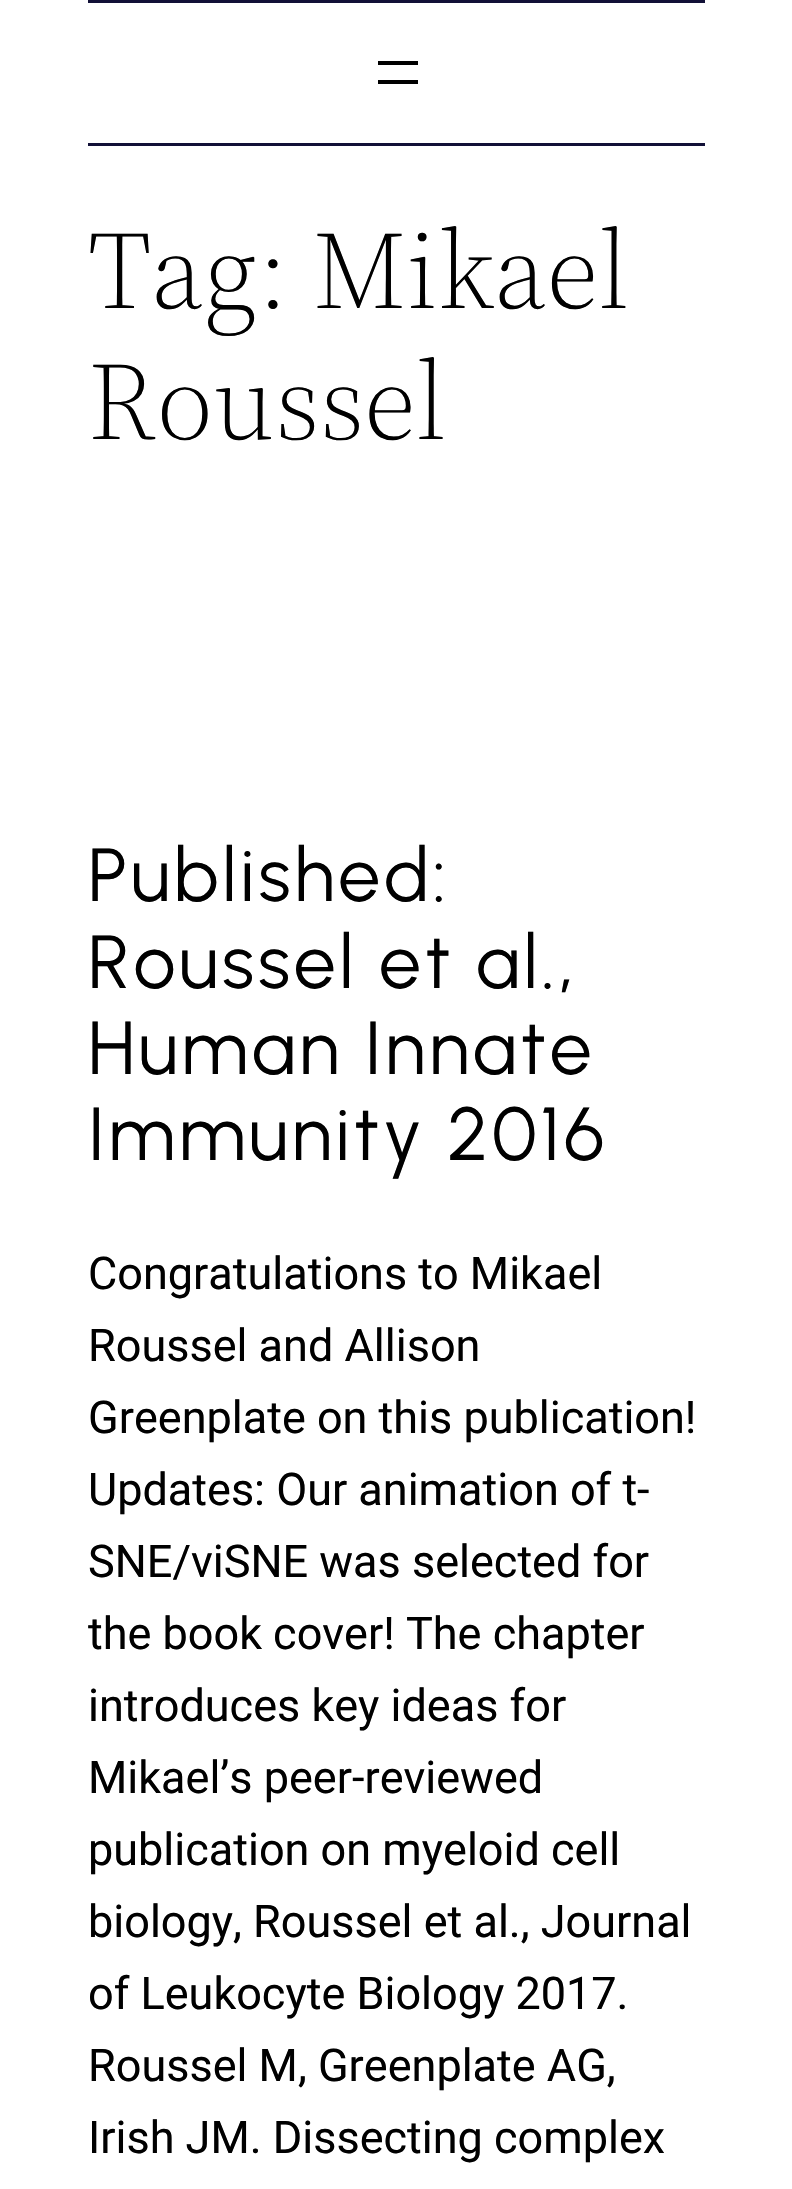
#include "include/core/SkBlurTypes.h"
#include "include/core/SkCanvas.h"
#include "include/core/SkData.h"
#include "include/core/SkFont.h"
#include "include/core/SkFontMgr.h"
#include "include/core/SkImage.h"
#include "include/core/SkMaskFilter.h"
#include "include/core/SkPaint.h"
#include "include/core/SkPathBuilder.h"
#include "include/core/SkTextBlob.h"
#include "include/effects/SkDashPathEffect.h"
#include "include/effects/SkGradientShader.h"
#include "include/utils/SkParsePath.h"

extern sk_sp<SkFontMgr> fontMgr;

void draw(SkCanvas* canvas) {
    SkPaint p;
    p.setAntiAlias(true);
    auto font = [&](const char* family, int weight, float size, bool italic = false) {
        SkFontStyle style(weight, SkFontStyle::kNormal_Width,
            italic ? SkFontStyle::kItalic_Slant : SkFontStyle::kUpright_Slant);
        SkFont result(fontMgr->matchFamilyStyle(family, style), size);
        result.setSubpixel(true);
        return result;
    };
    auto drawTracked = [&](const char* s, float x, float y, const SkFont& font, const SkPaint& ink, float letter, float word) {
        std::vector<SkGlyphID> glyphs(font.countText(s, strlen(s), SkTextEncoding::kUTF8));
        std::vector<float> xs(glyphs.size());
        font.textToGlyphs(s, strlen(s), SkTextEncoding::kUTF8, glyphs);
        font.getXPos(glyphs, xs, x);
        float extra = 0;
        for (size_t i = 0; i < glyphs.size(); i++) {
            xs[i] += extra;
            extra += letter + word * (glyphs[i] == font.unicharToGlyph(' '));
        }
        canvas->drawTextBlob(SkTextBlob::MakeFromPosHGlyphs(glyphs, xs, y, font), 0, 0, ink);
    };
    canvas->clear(0xFFFFFFFF);
    {
        const struct { float l, t, r, b; SkColor color; } items[] = {
            {88, 0, 705, 3, 0xFF121037},
            {378, 61, 418, 65, 0xFF000000},
            {378, 80, 418, 84, 0xFF000000},
            {88, 143, 705, 146, 0xFF121037},
        };
        for (auto [l, t, r, b, color] : items) {
            p.setColor(color);
            canvas->drawRect(SkRect::MakeLTRB(l, t, r, b), p);
        }
    }
    auto font1 = font("Source Serif 4", 300, 110);
    p.setColor(0xFF000000);
    canvas->drawString("Tag: Mikael", 88, 308, font1, p);
    canvas->drawString("Roussel", 88, 439, font1, p);
    auto font2 = font("Urbanist", 400, 75);
    {
        const struct { const char* s; float x, y; } items[] = {
            {"Published:", 88, 901},
            {"Roussel et al.,", 88, 988},
            {"Human Innate", 88, 1074},
            {"Immunity 2016", 88, 1160},
        };
        for (auto [s, x, y] : items) {
            drawTracked(s, x, y, font2, p, 3.75f, 0);
        }
    }
    auto font3 = font("Roboto", 400, 45);
    {
        const struct { const char* s; float x, y; } items[] = {
            {"Congratulations to Mikael", 88, 1289},
            {"Roussel and Allison", 88, 1361},
            {"Greenplate on this publication!", 88, 1433},
            {"Updates: Our animation of t-", 88, 1505},
            {"SNE/viSNE was selected for", 88, 1577},
            {"the book cover! The chapter", 88, 1649},
            {"introduces key ideas for", 88, 1721},
            {"Mikael’s peer-reviewed", 88, 1793},
            {"publication on myeloid cell", 88, 1865},
            {"biology, Roussel et al., Journal", 88, 1937},
            {"of Leukocyte Biology 2017.", 88, 2009},
            {"Roussel M, Greenplate AG,", 88, 2081},
            {"Irish JM. Dissecting complex", 88, 2153},
        };
        for (auto [s, x, y] : items) {
            canvas->drawString(s, x, y, font3, p);
        }
    }
}
